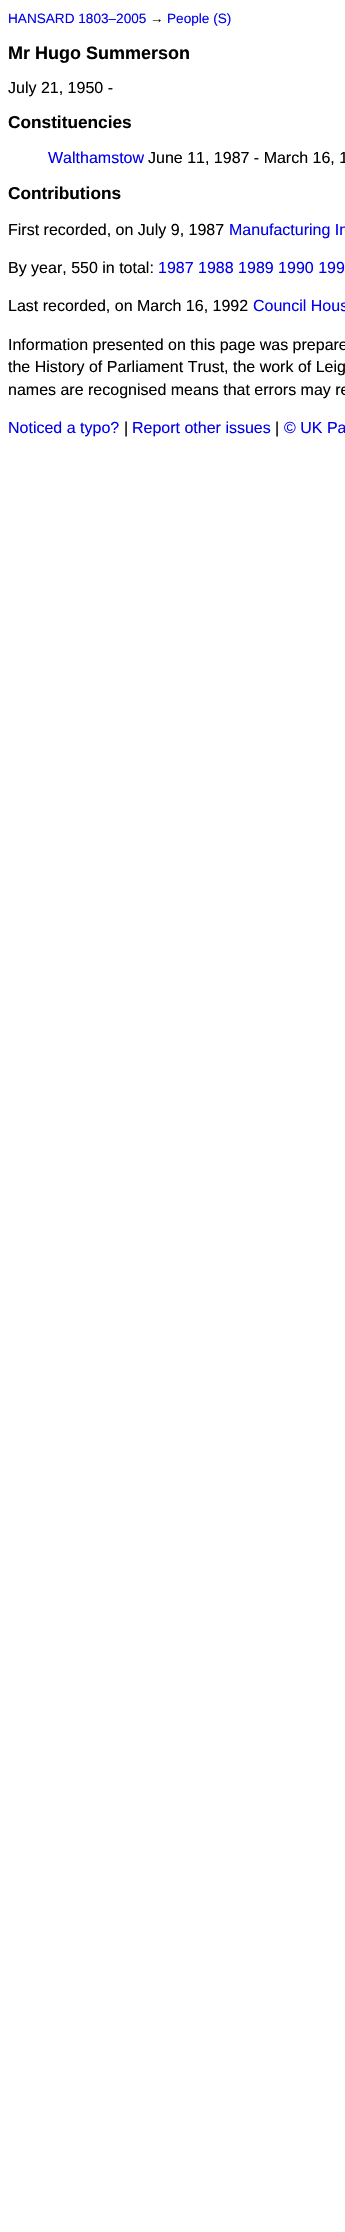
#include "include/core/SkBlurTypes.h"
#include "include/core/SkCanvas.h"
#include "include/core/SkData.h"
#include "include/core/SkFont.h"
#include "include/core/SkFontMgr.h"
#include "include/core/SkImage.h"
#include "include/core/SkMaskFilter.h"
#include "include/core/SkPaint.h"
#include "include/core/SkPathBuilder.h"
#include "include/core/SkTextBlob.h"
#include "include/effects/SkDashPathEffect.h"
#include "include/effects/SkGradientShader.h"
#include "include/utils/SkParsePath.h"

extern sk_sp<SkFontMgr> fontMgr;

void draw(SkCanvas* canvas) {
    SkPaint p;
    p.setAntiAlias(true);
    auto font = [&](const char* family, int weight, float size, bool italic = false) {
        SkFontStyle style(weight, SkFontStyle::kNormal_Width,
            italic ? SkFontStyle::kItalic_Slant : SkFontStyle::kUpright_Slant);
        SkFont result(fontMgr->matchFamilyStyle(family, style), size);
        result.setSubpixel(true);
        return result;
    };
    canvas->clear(0xFFFFFFFF);
    auto font1 = font("Liberation Sans", 400, 13.6f);
    p.setColor(0xFF0000EE);
    canvas->drawString("HANSARD 1803–2005", 8, 23, font1, p);
    p.setColor(0xFF000000);
    canvas->drawString("→", 150, 23, font1, p);
    p.setColor(0xFF0000EE);
    canvas->drawString("People (S)", 167, 23, font1, p);
    auto font2 = font("Liberation Sans", 700, 18);
    p.setColor(0xFF000000);
    canvas->drawString("Mr Hugo Summerson", 8, 59, font2, p);
    auto font3 = font("Liberation Sans", 400, 16);
    canvas->drawString("July 21, 1950 -", 8, 93, font3, p);
    auto font4 = font("Liberation Sans", 700, 17.25f);
    canvas->drawString("Constituencies", 8, 128, font4, p);
    p.setColor(0xFF0000EE);
    canvas->drawString("Walthamstow", 48, 163, font3, p);
    p.setColor(0xFF000000);
    canvas->drawString("June 11, 1987 - March 16, 1", 148, 163, font3, p);
    canvas->drawString("Contributions", 8, 199, font4, p);
    canvas->drawString("First recorded, on July 9, 1987", 8, 235, font3, p);
    p.setColor(0xFF0000EE);
    canvas->drawString("Manufacturing In", 229, 235, font3, p);
    p.setColor(0xFF000000);
    canvas->drawString("By year, 550 in total:", 8, 273, font3, p);
    p.setColor(0xFF0000EE);
    canvas->drawString("1987 1988 1989 1990 199", 158, 273, font3, p);
    p.setColor(0xFF000000);
    canvas->drawString("Last recorded, on March 16, 1992", 8, 311, font3, p);
    p.setColor(0xFF0000EE);
    canvas->drawString("Council Hous", 253, 311, font3, p);
    p.setColor(0xFF000000);
    {
        const struct { const char* s; float x, y; } items[] = {
            {"Information presented on this page was prepare", 8, 350},
            {"the History of Parliament Trust, the work of Leig", 8, 372},
            {"names are recognised means that errors may re", 8, 395},
        };
        for (auto [s, x, y] : items) {
            canvas->drawString(s, x, y, font3, p);
        }
    }
    p.setColor(0xFF0000EE);
    canvas->drawString("Noticed a typo?", 8, 433, font3, p);
    p.setColor(0xFF000000);
    canvas->drawString("|", 124, 433, font3, p);
    p.setColor(0xFF0000EE);
    canvas->drawString("Report other issues", 132, 433, font3, p);
    p.setColor(0xFF000000);
    canvas->drawString("|", 275, 433, font3, p);
    p.setColor(0xFF0000EE);
    canvas->drawString("© UK Pa", 284, 433, font3, p);
}
